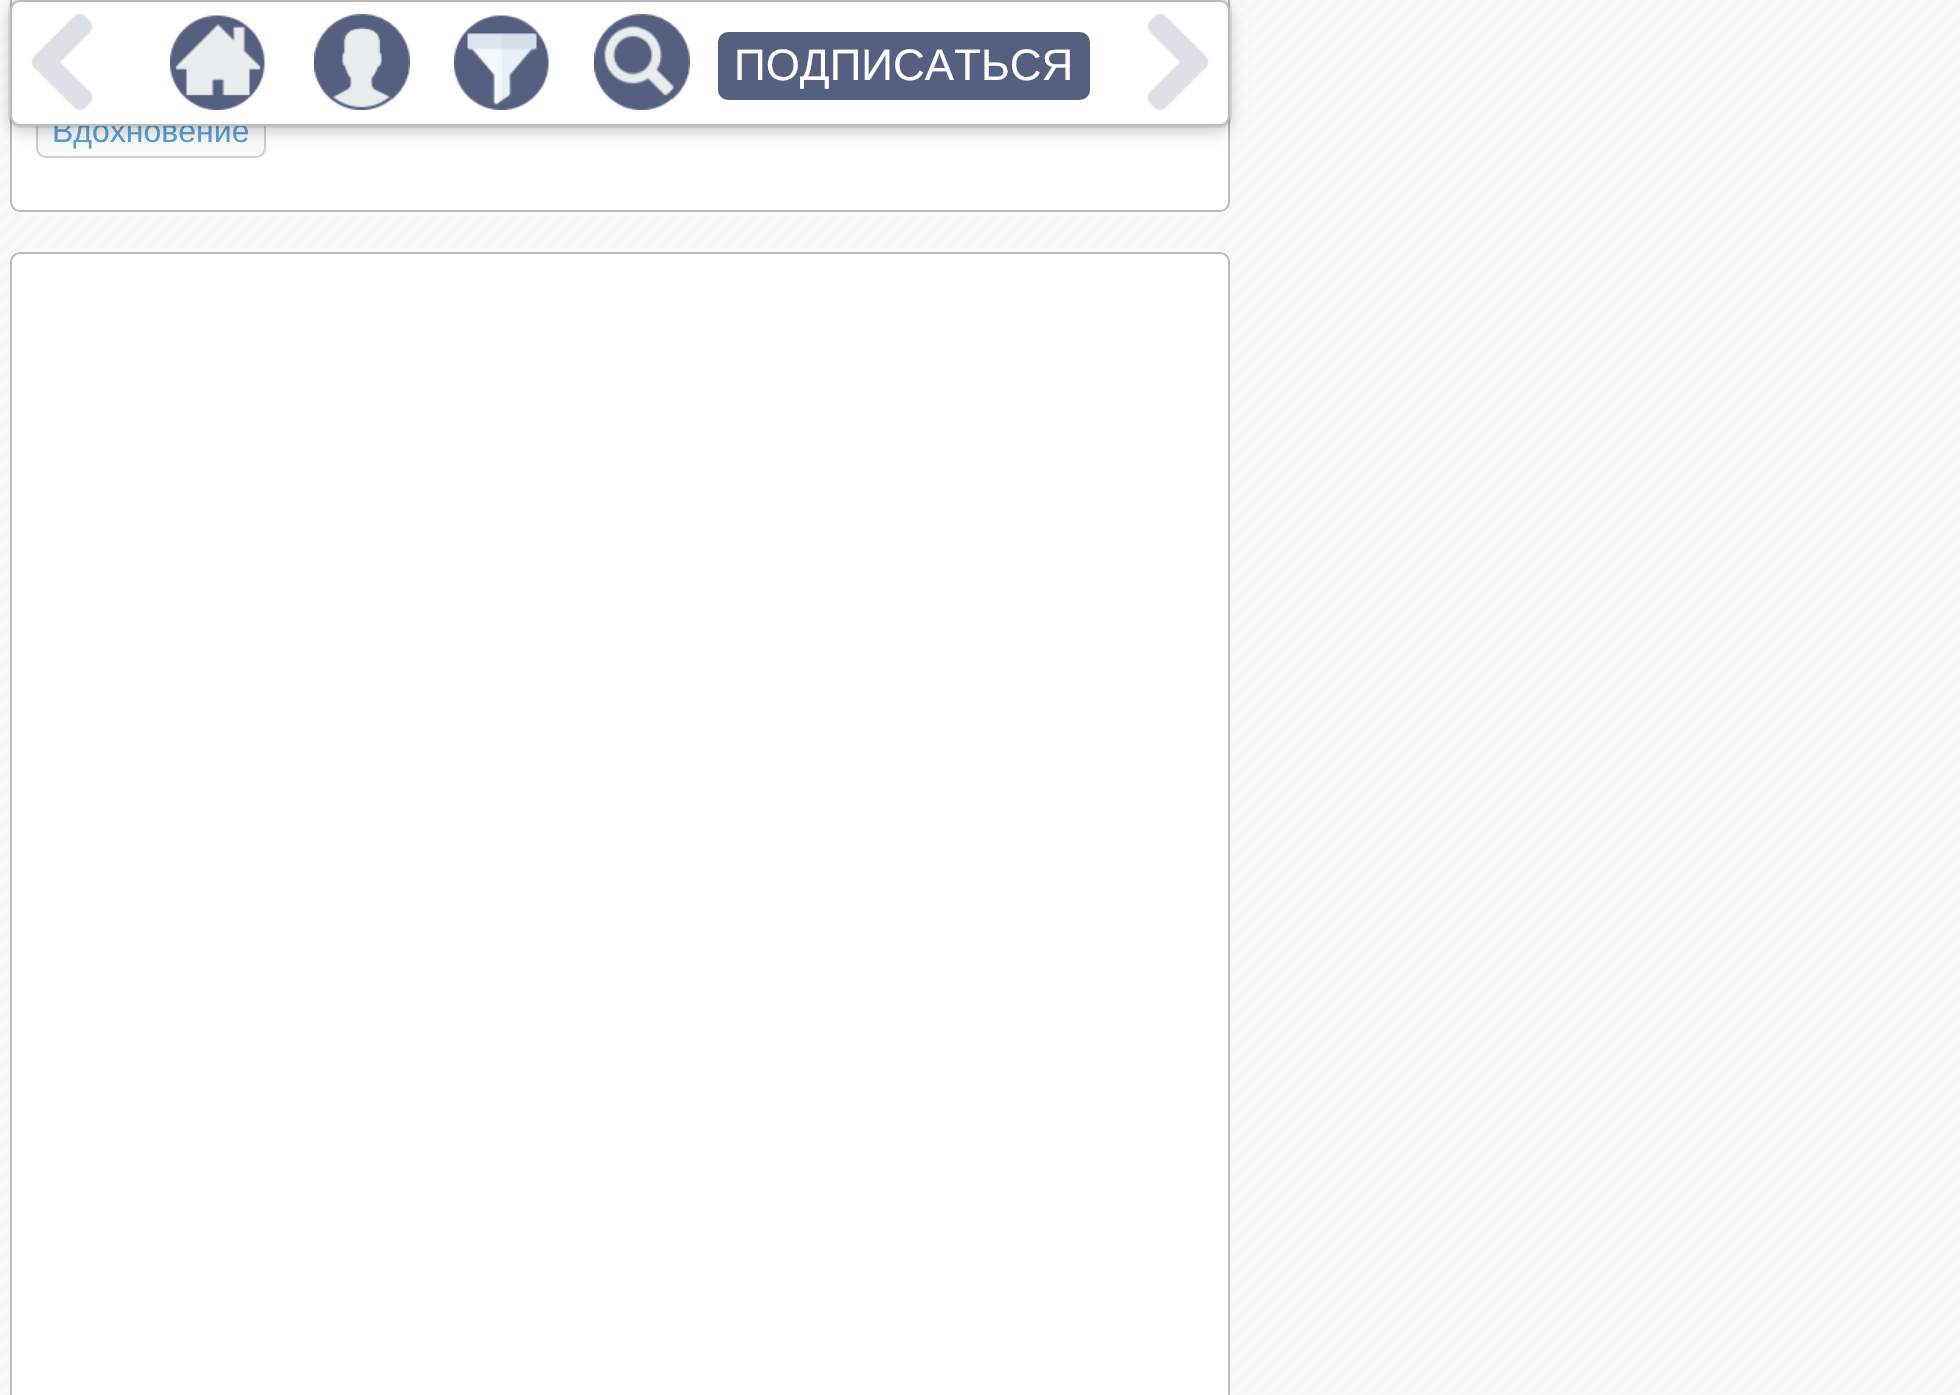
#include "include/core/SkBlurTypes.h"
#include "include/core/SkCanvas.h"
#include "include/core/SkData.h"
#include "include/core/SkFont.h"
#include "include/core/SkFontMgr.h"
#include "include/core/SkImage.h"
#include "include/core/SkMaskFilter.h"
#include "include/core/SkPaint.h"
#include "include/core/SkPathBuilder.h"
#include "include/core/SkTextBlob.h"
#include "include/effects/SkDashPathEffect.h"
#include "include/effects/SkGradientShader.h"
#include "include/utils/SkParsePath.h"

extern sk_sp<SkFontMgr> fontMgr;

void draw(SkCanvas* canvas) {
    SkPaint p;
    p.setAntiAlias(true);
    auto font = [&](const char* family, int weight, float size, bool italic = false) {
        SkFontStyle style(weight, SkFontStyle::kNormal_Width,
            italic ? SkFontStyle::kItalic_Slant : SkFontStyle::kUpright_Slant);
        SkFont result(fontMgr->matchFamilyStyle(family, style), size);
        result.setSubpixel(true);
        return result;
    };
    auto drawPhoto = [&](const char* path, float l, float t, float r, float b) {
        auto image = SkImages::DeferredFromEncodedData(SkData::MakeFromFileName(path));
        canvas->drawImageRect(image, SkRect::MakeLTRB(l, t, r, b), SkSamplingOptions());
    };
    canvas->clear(0xFFFFFFFF);
    drawPhoto("media/1.png", 0, 0, 1960, 1395);
    p.setColor(0xFFFFFFFF);
    canvas->drawRoundRect(SkRect::MakeLTRB(11, -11, 1229, 211), 9, 9, p);
    p.setStyle(SkPaint::kStroke_Style);
    p.setStrokeWidth(2);
    p.setColor(0xFFBBBBBB);
    canvas->drawRoundRect(SkRect::MakeLTRB(11, -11, 1229, 211), 9, 9, p);
    p.setStyle(SkPaint::kFill_Style);
    p.setColor(0xFFFAFAFA);
    canvas->drawRoundRect(SkRect::MakeLTRB(37, 107, 265, 157), 9, 9, p);
    p.setStyle(SkPaint::kStroke_Style);
    p.setColor(0xFFCCCCCC);
    canvas->drawRoundRect(SkRect::MakeLTRB(37, 107, 265, 157), 9, 9, p);
    auto font1 = font("Liberation Sans", 400, 32);
    p.setStyle(SkPaint::kFill_Style);
    p.setColor(0xFF5AA0D6);
    canvas->drawString("Вдохновение", 52, 142, font1, p);
    p.setStyle(SkPaint::kStroke_Style);
    p.setColor(0x14000000);
    canvas->drawRoundRect(SkRect::MakeLTRB(9, -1, 1231, 127), 11, 11, p);
    p.setStyle(SkPaint::kFill_Style);
    p.setColor(0x33000000);
    p.setMaskFilter(SkMaskFilter::MakeBlur(kNormal_SkBlurStyle, 8));
    canvas->drawRoundRect(SkRect::MakeLTRB(10, 6, 1230, 132), 10, 10, p);
    p.setMaskFilter(nullptr);
    p.setColor(0xFFFFFFFF);
    canvas->drawRoundRect(SkRect::MakeLTRB(11, 1, 1229, 125), 9, 9, p);
    p.setStyle(SkPaint::kStroke_Style);
    p.setColor(0xFFBBBBBB);
    canvas->drawRoundRect(SkRect::MakeLTRB(11, 1, 1229, 125), 9, 9, p);
    drawPhoto("media/2.png", 31, 14, 93, 110);
    drawPhoto("media/3.png", 170, 15, 265, 110);
    drawPhoto("media/4.png", 314, 14, 410, 110);
    drawPhoto("media/5.png", 454, 15, 549, 110);
    drawPhoto("media/6.png", 594, 14, 690, 110);
    p.setStyle(SkPaint::kFill_Style);
    p.setColor(0xFF556080);
    canvas->drawRoundRect(SkRect::MakeLTRB(718, 32, 1090, 100), 10, 10, p);
    auto font2 = font("Liberation Sans", 400, 44);
    p.setColor(0xFFFFFFFF);
    canvas->drawString("ПОДПИСАТЬСЯ", 734, 80, font2, p);
    drawPhoto("media/7.png", 1147, 14, 1209, 110);
    canvas->drawRoundRect(SkRect::MakeLTRB(11, 253, 1229, 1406), 9, 9, p);
    p.setStyle(SkPaint::kStroke_Style);
    p.setColor(0xFFBBBBBB);
    canvas->drawRoundRect(SkRect::MakeLTRB(11, 253, 1229, 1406), 9, 9, p);
}
